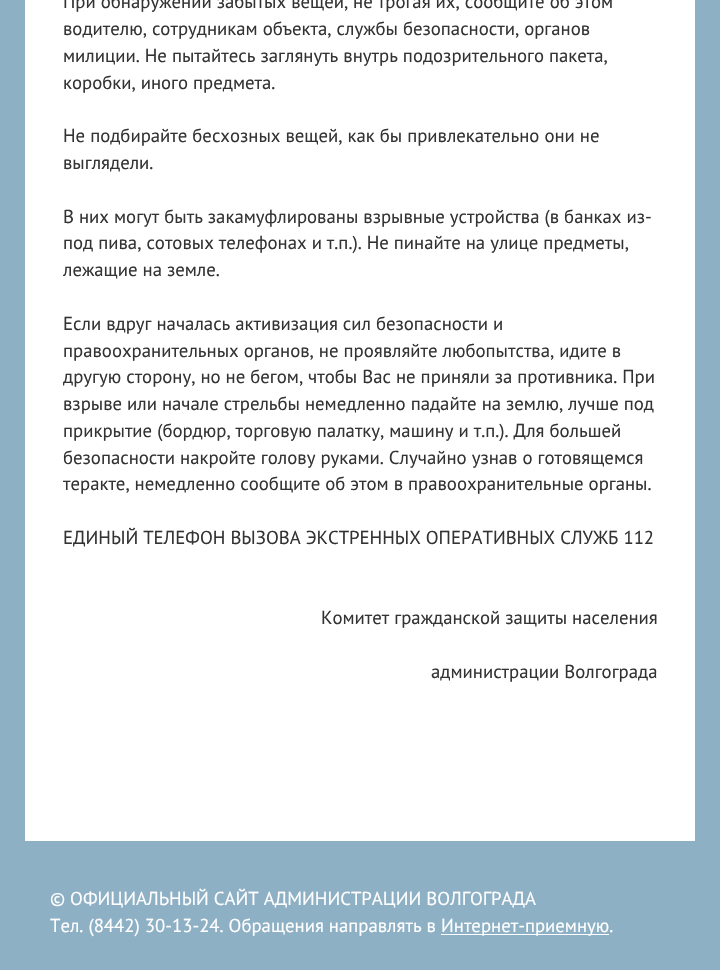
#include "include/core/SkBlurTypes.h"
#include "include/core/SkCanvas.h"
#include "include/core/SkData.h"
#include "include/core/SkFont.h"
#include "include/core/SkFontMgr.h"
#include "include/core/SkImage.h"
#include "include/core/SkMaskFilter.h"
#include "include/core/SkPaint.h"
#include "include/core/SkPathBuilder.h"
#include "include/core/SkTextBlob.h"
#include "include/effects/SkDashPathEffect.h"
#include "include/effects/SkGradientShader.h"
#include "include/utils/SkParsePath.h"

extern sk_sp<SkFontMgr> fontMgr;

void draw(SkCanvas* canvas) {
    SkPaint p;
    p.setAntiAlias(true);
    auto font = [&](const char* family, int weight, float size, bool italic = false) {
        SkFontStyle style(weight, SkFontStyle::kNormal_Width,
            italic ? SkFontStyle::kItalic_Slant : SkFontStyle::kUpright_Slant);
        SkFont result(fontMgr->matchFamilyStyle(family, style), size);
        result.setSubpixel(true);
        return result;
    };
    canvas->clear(0xFF8EB0C5);
    p.setColor(0xFFFFFFFF);
    canvas->drawRect(SkRect::MakeLTRB(25, 0, 695, 841), p);
    auto font1 = font("PT Sans", 400, 18.75f);
    p.setColor(0xFF333333);
    {
        const struct { const char* s; float x, y; } items[] = {
            {"При обнаружении забытых вещей, не трогая их, сообщите об этом", 63, 8},
            {"водителю, сотрудникам объекта, службы безопасности, органов", 63, 35},
            {"милиции. Не пытайтесь заглянуть внутрь подозрительного пакета,", 63, 62},
            {"коробки, иного предмета.", 63, 89},
            {"Не подбирайте бесхозных вещей, как бы привлекательно они не", 63, 142},
            {"выглядели.", 63, 169},
            {"В них могут быть закамуфлированы взрывные устройства (в банках из-", 63, 223},
            {"под пива, сотовых телефонах и т.п.). Не пинайте на улице предметы,", 63, 249},
            {"лежащие на земле.", 63, 276},
            {"Если вдруг началась активизация сил безопасности и", 63, 330},
            {"правоохранительных органов, не проявляйте любопытства, идите в", 63, 357},
            {"другую сторону, но не бегом, чтобы Вас не приняли за противника. При", 63, 383},
            {"взрыве или начале стрельбы немедленно падайте на землю, лучше под", 63, 410},
            {"прикрытие (бордюр, торговую палатку, машину и т.п.). Для большей", 63, 437},
            {"безопасности накройте голову руками. Случайно узнав о готовящемся", 63, 464},
            {"теракте, немедленно сообщите об этом в правоохранительные органы.", 63, 490},
            {"ЕДИНЫЙ ТЕЛЕФОН ВЫЗОВА ЭКСТРЕННЫХ ОПЕРАТИВНЫХ СЛУЖБ 112", 63, 544},
            {"Комитет гражданской защиты населения", 321, 624},
            {"администрации Волгограда", 431, 678},
        };
        for (auto [s, x, y] : items) {
            canvas->drawString(s, x, y, font1, p);
        }
    }
    p.setColor(0xFFFFFFFF);
    canvas->drawString("© ОФИЦИАЛЬНЫЙ САЙТ АДМИНИСТРАЦИИ ВОЛГОГРАДА", 50, 905, font1, p);
    canvas->drawString("Тел. (8442) 30-13-24. Обращения направлять в", 50, 932, font1, p);
    canvas->drawRect(SkRect::MakeLTRB(441, 934, 609, 935), p);
    canvas->drawString("Интернет-приемную.", 441, 932, font1, p);
}
